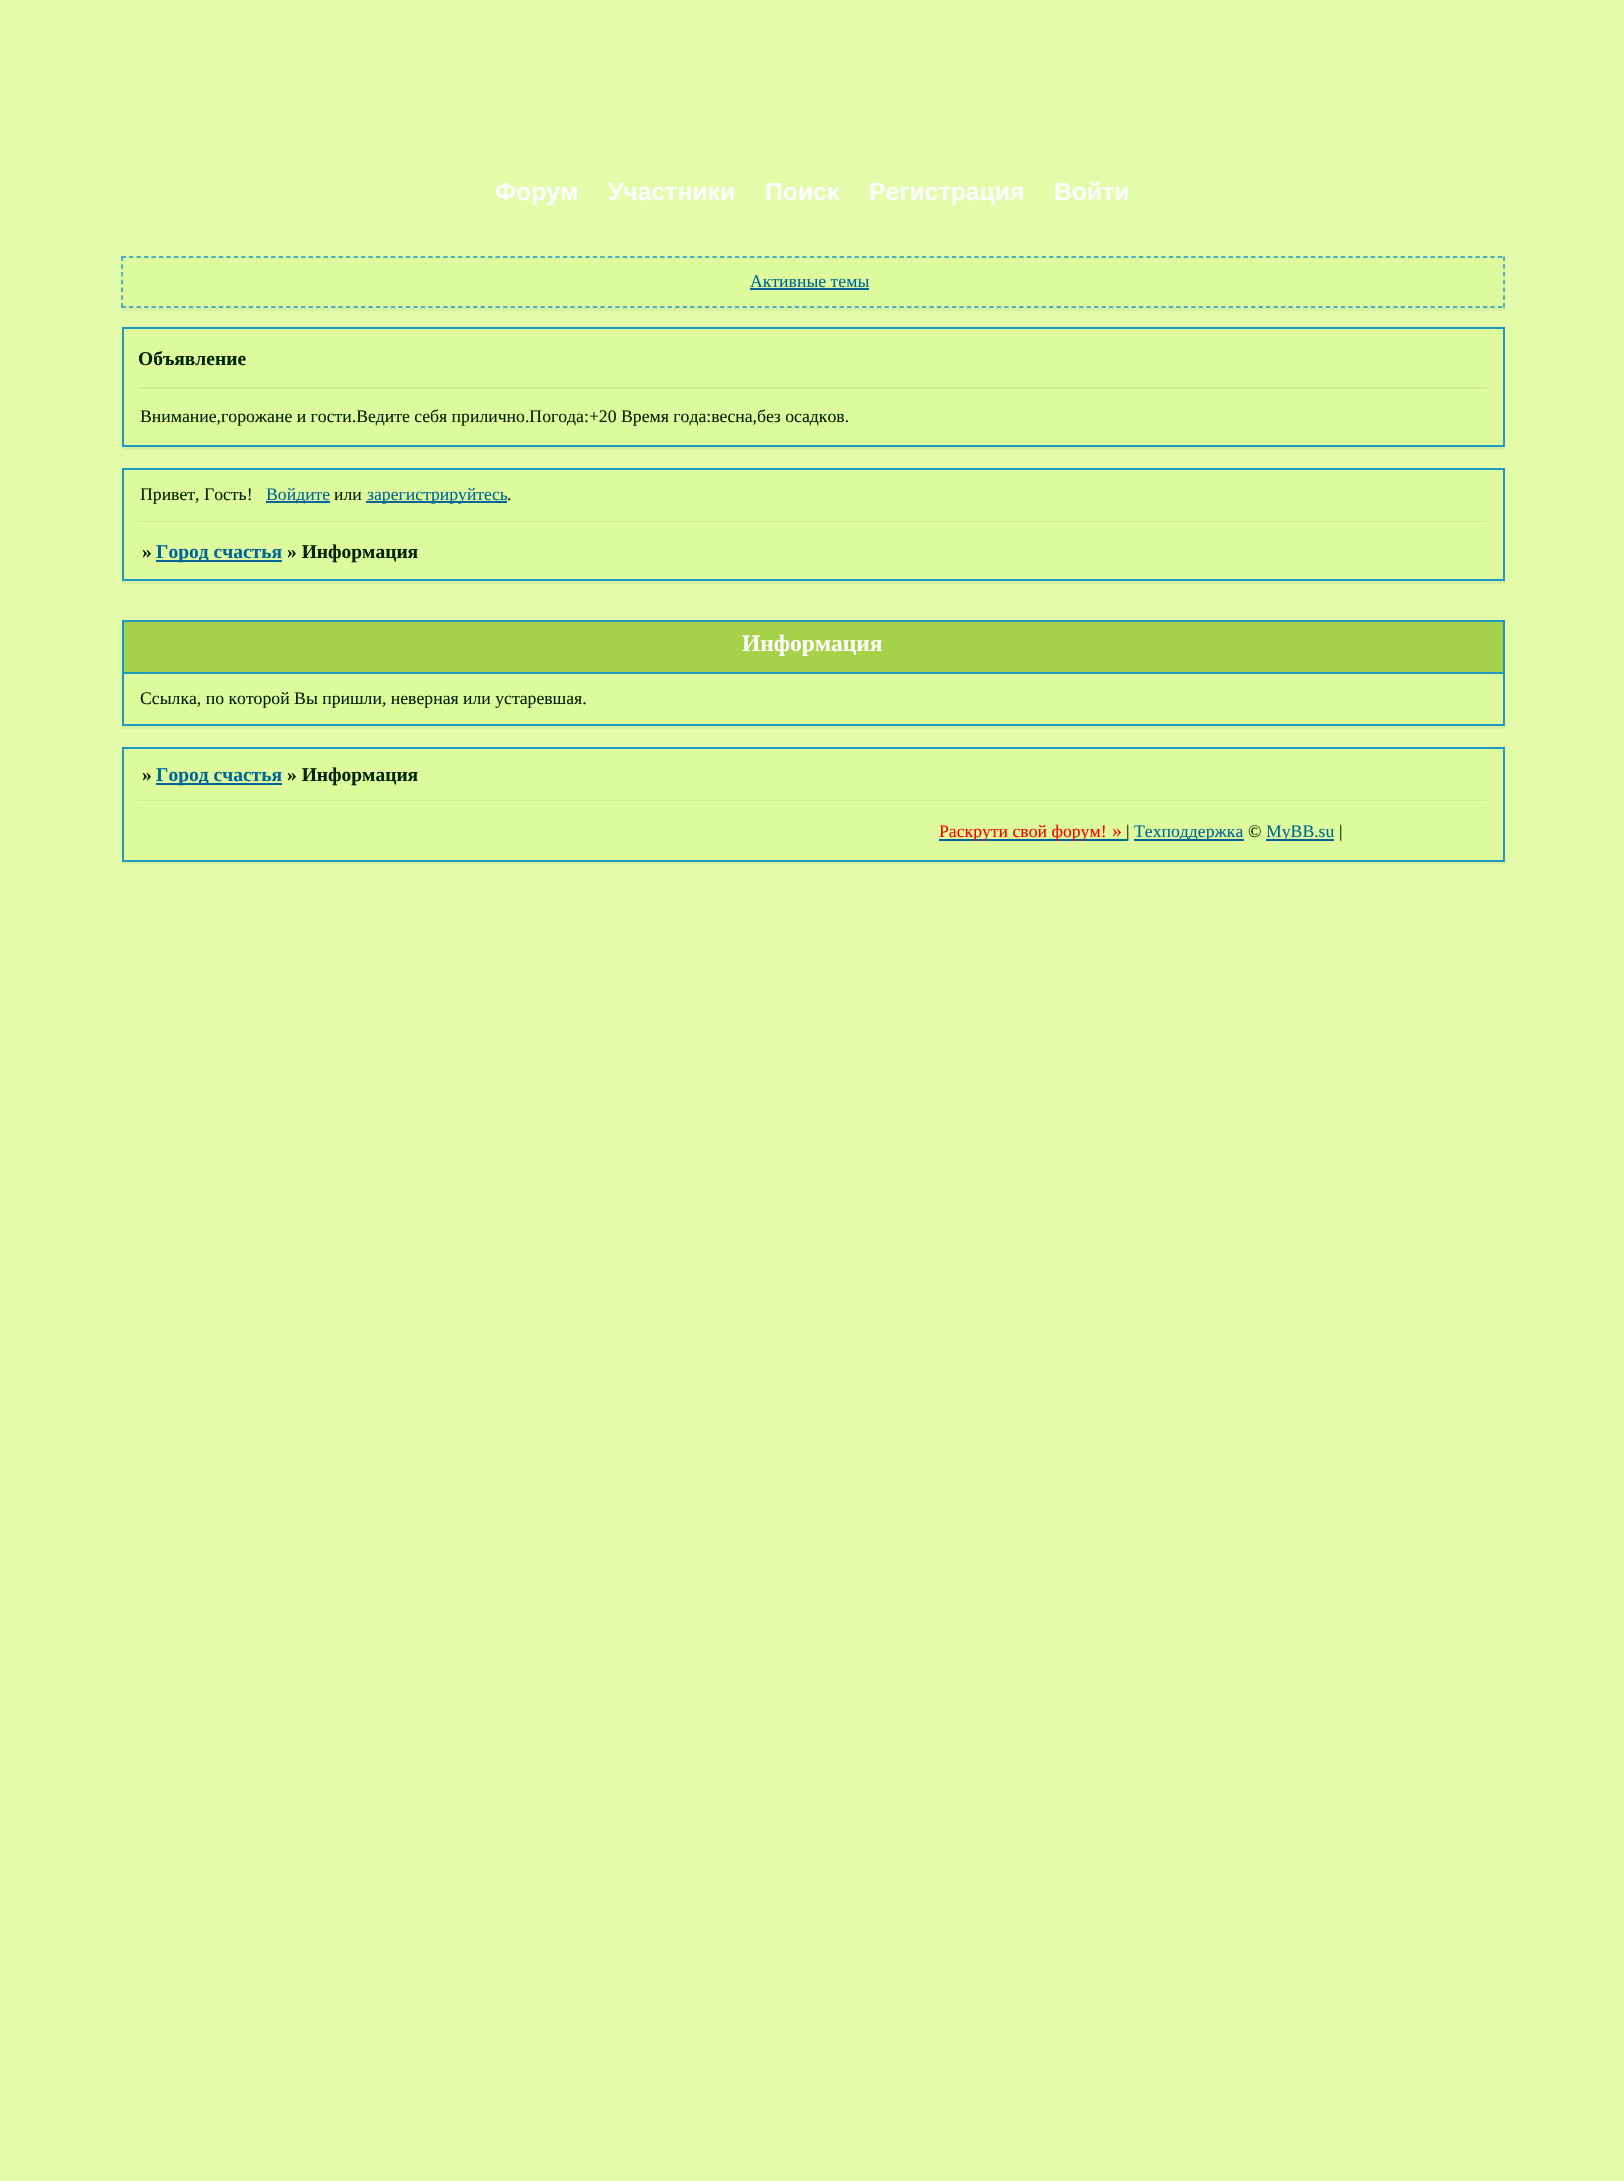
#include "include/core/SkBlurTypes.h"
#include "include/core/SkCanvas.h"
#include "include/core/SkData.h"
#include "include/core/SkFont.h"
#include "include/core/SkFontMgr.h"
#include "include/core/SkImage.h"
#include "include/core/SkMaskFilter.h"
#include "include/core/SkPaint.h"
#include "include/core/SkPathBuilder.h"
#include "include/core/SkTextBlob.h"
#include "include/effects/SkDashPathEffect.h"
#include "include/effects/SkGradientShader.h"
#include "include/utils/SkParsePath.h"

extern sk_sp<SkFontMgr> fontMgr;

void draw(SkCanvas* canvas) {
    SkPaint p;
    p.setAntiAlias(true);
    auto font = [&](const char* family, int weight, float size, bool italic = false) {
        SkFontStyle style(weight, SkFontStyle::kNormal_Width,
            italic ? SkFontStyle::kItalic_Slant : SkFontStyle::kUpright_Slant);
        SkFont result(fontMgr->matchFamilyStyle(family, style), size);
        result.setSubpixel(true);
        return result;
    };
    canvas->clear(0xFFE2FCAA);
    auto font1 = font("Liberation Sans", 700, 24.75f);
    p.setColor(0xFFFFFFFF);
    {
        const struct { const char* s; float x, y; } items[] = {
            {"Форум", 495, 200},
            {"Участники", 608, 200},
            {"Поиск", 765, 200},
            {"Регистрация", 869, 200},
            {"Войти", 1054, 200},
        };
        for (auto [s, x, y] : items) {
            canvas->drawString(s, x, y, font1, p);
        }
    }
    p.setColor(0xFFD7F0A1);
    canvas->drawRect(SkRect::MakeLTRB(122, 308, 1505, 311), p);
    p.setColor(0xFFDDFB9C);
    canvas->drawRect(SkRect::MakeLTRB(122, 257, 1505, 308), p);
    p.setStyle(SkPaint::kStroke_Style);
    p.setStrokeWidth(1.5f);
    p.setColor(0xFF2099C1);
    p.setPathEffect(SkDashPathEffect::Make({{4.5f, 2.98f}}, 0));
    canvas->drawPath(SkPathBuilder().moveTo(121.5f, 257).lineTo(1504.5f, 257).detach(), p);
    p.setPathEffect(nullptr);
    p.setPathEffect(SkDashPathEffect::Make({{4.5f, 3.25f}}, 0));
    canvas->drawPath(SkPathBuilder().moveTo(1504, 256.5f).lineTo(1504, 307.5f).detach(), p);
    p.setPathEffect(nullptr);
    p.setPathEffect(SkDashPathEffect::Make({{4.5f, 2.98f}}, 0));
    canvas->drawPath(SkPathBuilder().moveTo(121.5f, 307).lineTo(1504.5f, 307).detach(), p);
    p.setPathEffect(nullptr);
    p.setPathEffect(SkDashPathEffect::Make({{4.5f, 3.25f}}, 0));
    canvas->drawPath(SkPathBuilder().moveTo(122, 256.5f).lineTo(122, 307.5f).detach(), p);
    p.setPathEffect(nullptr);
    auto font2 = font("Liberation Serif", 400, 17.7f);
    p.setStyle(SkPaint::kFill_Style);
    p.setColor(0xFF006699);
    canvas->drawString("Активные темы", 750, 287, font2, p);
    canvas->drawRect(SkRect::MakeLTRB(750, 288, 869, 290), p);
    p.setColor(0xFFD7F0A1);
    canvas->drawRect(SkRect::MakeLTRB(122, 447, 1505, 450), p);
    p.setColor(0xFFDDFB9C);
    canvas->drawRect(SkRect::MakeLTRB(123, 328, 1504, 446), p);
    p.setStyle(SkPaint::kStroke_Style);
    p.setStrokeWidth(2);
    p.setColor(0xFF2099C1);
    canvas->drawRect(SkRect::MakeLTRB(123, 328, 1504, 446), p);
    p.setStyle(SkPaint::kFill_Style);
    p.setColor(0xFFE3FFA6);
    canvas->drawRect(SkRect::MakeLTRB(138, 389, 1487, 391), p);
    p.setColor(0xFFD1ED93);
    canvas->drawRect(SkRect::MakeLTRB(138, 387, 1487, 389), p);
    auto font3 = font("Liberation Serif", 700, 19.5f);
    p.setColor(0xFF032400);
    canvas->drawString("Объявление", 138, 365, font3, p);
    canvas->drawString("Внимание,горожане и гости.Ведите себя прилично.Погода:+20 Время года:весна,без осадков.", 140, 422, font2, p);
    {
        const struct { float l, t, r, b; SkColor color; } items[] = {
            {124, 470, 1503, 579, 0xFFDDFB9C},
            {122, 468, 1505, 470, 0xFF2099C1},
            {1503, 468, 1505, 581, 0xFF2099C1},
            {122, 468, 124, 524, 0xFF2099C1},
        };
        for (auto [l, t, r, b, color] : items) {
            p.setColor(color);
            canvas->drawRect(SkRect::MakeLTRB(l, t, r, b), p);
        }
    }
    p.setColor(0xFF032400);
    canvas->drawString("Привет, Гость!", 140, 500, font2, p);
    p.setColor(0xFF006699);
    canvas->drawRect(SkRect::MakeLTRB(266, 501, 330, 503), p);
    canvas->drawString("Войдите", 266, 500, font2, p);
    p.setColor(0xFF032400);
    canvas->drawString("или", 334, 500, font2, p);
    p.setColor(0xFF006699);
    canvas->drawRect(SkRect::MakeLTRB(366, 501, 507, 503), p);
    canvas->drawString("зарегистрируйтесь", 367, 500, font2, p);
    p.setColor(0xFF032400);
    canvas->drawString(".", 507, 500, font2, p);
    {
        const struct { float l, t, r, b; SkColor color; } items[] = {
            {138, 521, 1487, 522, 0xFFD1ED93},
            {138, 522, 1487, 524, 0xFFE3FFA6},
            {122, 581, 1505, 584, 0xFFD7F0A1},
            {122, 579, 1505, 581, 0xFF2099C1},
            {122, 521, 124, 581, 0xFF2099C1},
        };
        for (auto [l, t, r, b, color] : items) {
            p.setColor(color);
            canvas->drawRect(SkRect::MakeLTRB(l, t, r, b), p);
        }
    }
    p.setColor(0xFF032400);
    canvas->drawString("»", 142, 558, font3, p);
    p.setColor(0xFF006699);
    canvas->drawRect(SkRect::MakeLTRB(156, 560, 282, 562), p);
    canvas->drawString("Город счастья", 156, 558, font3, p);
    p.setColor(0xFF032400);
    canvas->drawString("» Информация", 287, 558, font3, p);
    {
        const struct { float l, t, r, b; SkColor color; } items[] = {
            {124, 622, 1503, 672, 0xFFA5D248},
            {122, 620, 1505, 622, 0xFF2099C1},
            {1503, 620, 1505, 672, 0xFF2099C1},
            {122, 620, 124, 672, 0xFF2099C1},
        };
        for (auto [l, t, r, b, color] : items) {
            p.setColor(color);
            canvas->drawRect(SkRect::MakeLTRB(l, t, r, b), p);
        }
    }
    auto font4 = font("Liberation Serif", 700, 23.5f);
    p.setColor(0xFFFFFFFF);
    canvas->drawString("Информация", 742, 651, font4, p);
    p.setColor(0xFFD7F0A1);
    canvas->drawRect(SkRect::MakeLTRB(122, 726, 1505, 729), p);
    p.setColor(0xFFDDFB9C);
    canvas->drawRect(SkRect::MakeLTRB(123, 673, 1504, 725), p);
    p.setStyle(SkPaint::kStroke_Style);
    p.setColor(0xFF2099C1);
    canvas->drawRect(SkRect::MakeLTRB(123, 673, 1504, 725), p);
    p.setStyle(SkPaint::kFill_Style);
    p.setColor(0xFF032400);
    canvas->drawString("Ссылка, по которой Вы пришли, неверная или устаревшая.", 140, 704, font2, p);
    {
        const struct { float l, t, r, b; SkColor color; } items[] = {
            {122, 747, 1505, 749, 0xFF2099C1},
            {1503, 800, 1505, 861, 0xFF2099C1},
            {1503, 747, 1505, 803, 0xFF2099C1},
            {122, 860, 1505, 862, 0xFF2099C1},
            {122, 800, 124, 861, 0xFF2099C1},
            {122, 747, 124, 803, 0xFF2099C1},
            {124, 749, 1503, 860, 0xFFDDFB9C},
        };
        for (auto [l, t, r, b, color] : items) {
            p.setColor(color);
            canvas->drawRect(SkRect::MakeLTRB(l, t, r, b), p);
        }
    }
    p.setColor(0xFF032400);
    canvas->drawString("»", 142, 781, font3, p);
    p.setColor(0xFF006699);
    canvas->drawRect(SkRect::MakeLTRB(156, 783, 282, 785), p);
    canvas->drawString("Город счастья", 156, 781, font3, p);
    p.setColor(0xFF032400);
    canvas->drawString("» Информация", 287, 781, font3, p);
    {
        const struct { float l, t, r, b; SkColor color; } items[] = {
            {138, 800, 1487, 801, 0xFFD1ED93},
            {138, 801, 1487, 803, 0xFFE3FFA6},
            {122, 862, 1505, 864, 0xFFD7F0A1},
            {939, 839, 1127, 841, 0xFF006699},
        };
        for (auto [l, t, r, b, color] : items) {
            p.setColor(color);
            canvas->drawRect(SkRect::MakeLTRB(l, t, r, b), p);
        }
    }
    p.setColor(0xFFFF0000);
    canvas->drawString("Раскрути свой форум!", 939, 837, font2, p);
    auto font5 = font("Liberation Serif", 400, 20);
    canvas->drawString("»", 1112, 837, font5, p);
    p.setColor(0xFF032400);
    canvas->drawString("|", 1126, 837, font2, p);
    p.setColor(0xFF006699);
    canvas->drawRect(SkRect::MakeLTRB(1134, 839, 1244, 841), p);
    canvas->drawString("Техподдержка", 1134, 837, font2, p);
    p.setColor(0xFF032400);
    canvas->drawString("©", 1248, 837, font2, p);
    p.setColor(0xFF006699);
    canvas->drawRect(SkRect::MakeLTRB(1266, 839, 1334, 841), p);
    canvas->drawString("MyBB.su", 1266, 837, font2, p);
    p.setColor(0xFF032400);
    canvas->drawString("|", 1339, 837, font2, p);
}
